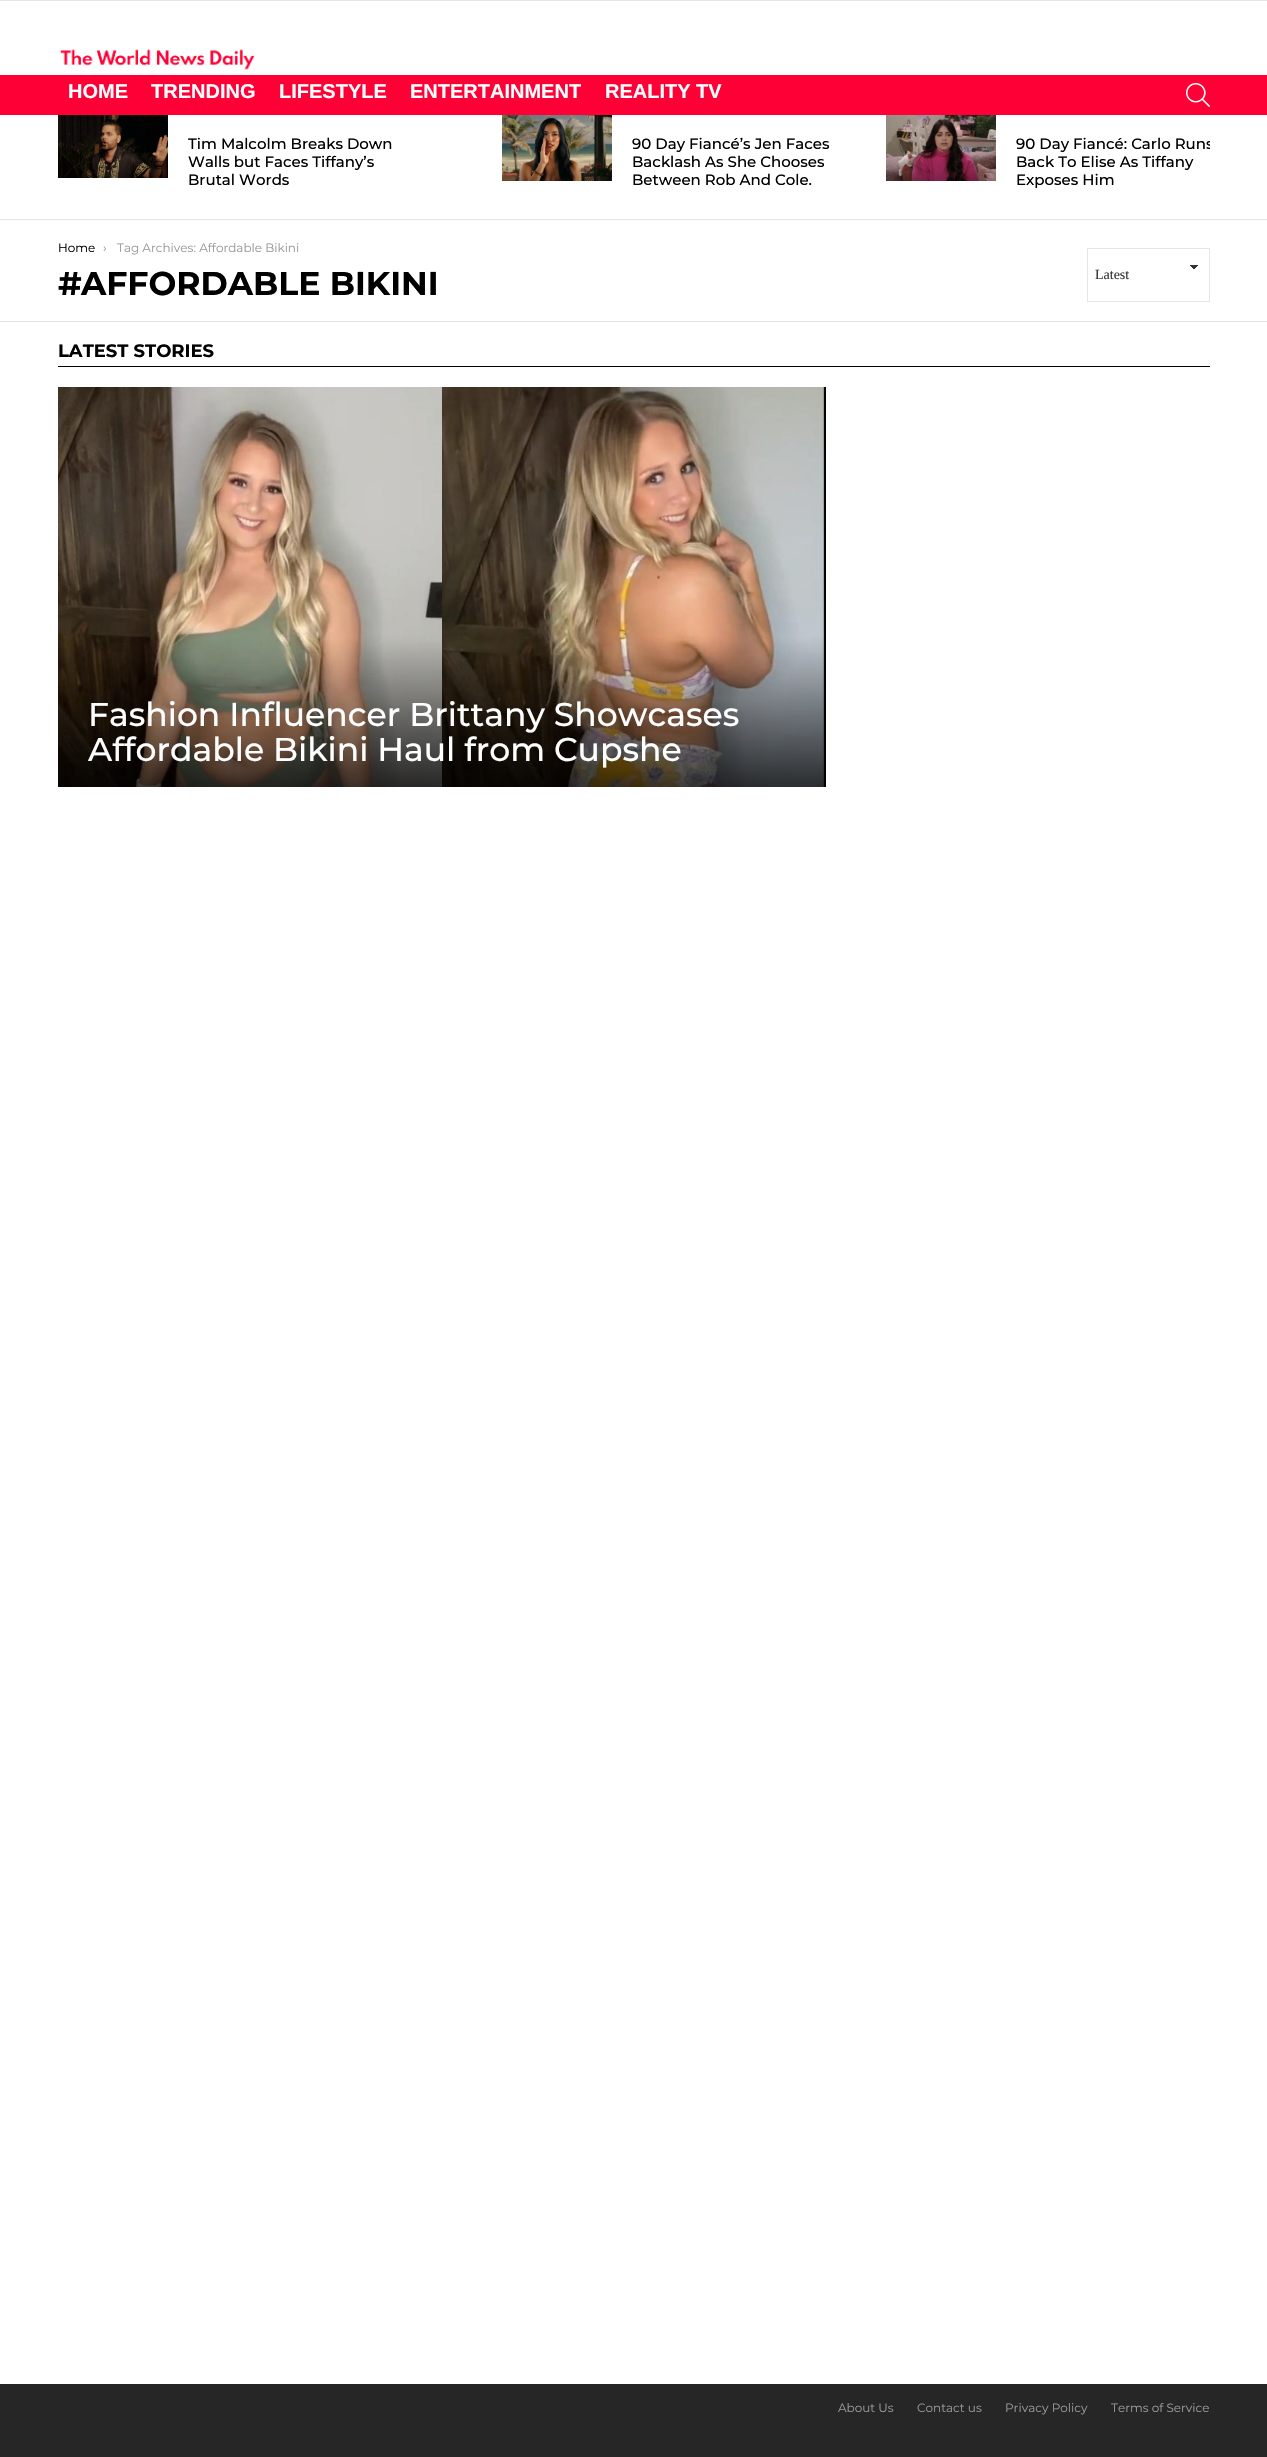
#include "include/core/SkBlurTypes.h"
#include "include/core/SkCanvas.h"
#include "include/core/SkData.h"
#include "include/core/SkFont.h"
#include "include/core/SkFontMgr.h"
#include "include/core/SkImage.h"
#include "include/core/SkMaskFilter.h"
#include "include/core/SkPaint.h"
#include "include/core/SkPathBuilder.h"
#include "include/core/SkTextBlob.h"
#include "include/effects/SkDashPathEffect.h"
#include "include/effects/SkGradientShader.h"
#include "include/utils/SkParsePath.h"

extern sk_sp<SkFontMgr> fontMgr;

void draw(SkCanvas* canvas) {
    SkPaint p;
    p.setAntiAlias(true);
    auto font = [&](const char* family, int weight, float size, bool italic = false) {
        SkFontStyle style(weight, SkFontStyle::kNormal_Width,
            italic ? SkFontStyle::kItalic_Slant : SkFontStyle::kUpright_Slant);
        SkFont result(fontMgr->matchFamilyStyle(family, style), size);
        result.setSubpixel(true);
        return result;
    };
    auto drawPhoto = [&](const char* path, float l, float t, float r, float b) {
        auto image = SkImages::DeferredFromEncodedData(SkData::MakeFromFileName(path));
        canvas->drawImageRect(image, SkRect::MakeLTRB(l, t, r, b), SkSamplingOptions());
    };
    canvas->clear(0xFFFFFFFF);
    p.setColor(0xFFE6E6E6);
    canvas->drawRect(SkRect::MakeLTRB(0, 0, 1267, 1), p);
    drawPhoto("media/1.png", 60, 49, 255, 70);
    p.setColor(0xFFFF0036);
    canvas->drawRect(SkRect::MakeLTRB(0, 75, 1267, 115), p);
    auto font1 = font("Liberation Sans", 700, 20);
    p.setColor(0xFFFFFFFF);
    {
        const struct { const char* s; float x, y; } items[] = {
            {"HOME", 68, 98},
            {"TRENDING", 151, 98},
            {"LIFESTYLE", 279, 98},
            {"ENTERTAINMENT", 410, 98},
            {"REALITY TV", 605, 98},
        };
        for (auto [s, x, y] : items) {
            canvas->drawString(s, x, y, font1, p);
        }
    }
    drawPhoto("media/2.png", 1186, 83, 1210, 107);
    p.setColor(0xFFE6E6E6);
    canvas->drawRect(SkRect::MakeLTRB(0, 219, 1267, 220), p);
    drawPhoto("media/3.png", 58, 115, 168, 178);
    auto font2 = font("Montserrat", 500, 15);
    p.setColor(0xFF000000);
    {
        const struct { const char* s; float x, y; } items[] = {
            {"Tim Malcolm Breaks Down", 188, 149},
            {"Walls but Faces Tiffany’s", 188, 167},
            {"Brutal Words", 188, 185},
        };
        for (auto [s, x, y] : items) {
            canvas->drawString(s, x, y, font2, p);
        }
    }
    drawPhoto("media/4.png", 502, 115, 612, 181);
    {
        const struct { const char* s; float x, y; } items[] = {
            {"90 Day Fiancé’s Jen Faces", 632, 149},
            {"Backlash As She Chooses", 632, 167},
            {"Between Rob And Cole.", 632, 185},
        };
        for (auto [s, x, y] : items) {
            canvas->drawString(s, x, y, font2, p);
        }
    }
    drawPhoto("media/5.png", 886, 115, 996, 181);
    canvas->save();
    canvas->clipRect(SkRect::MakeLTRB(58, 115, 1210, 219));
    canvas->drawString("90 Day Fiancé: Carlo Runs", 1016, 149, font2, p);
    canvas->restore();
    canvas->drawString("Back To Elise As Tiffany", 1016, 167, font2, p);
    canvas->drawString("Exposes Him", 1016, 185, font2, p);
    auto font3 = font("Montserrat", 400, 12);
    canvas->drawString("Home", 58, 252, font3, p);
    p.setColor(0xFF999999);
    canvas->drawString("›", 103, 252, font3, p);
    canvas->drawString("Tag Archives: Affordable Bikini", 117, 252, font3, p);
    auto font4 = font("Montserrat", 700, 33);
    p.setColor(0xFF000000);
    canvas->drawString("#", 58, 295, font4, p);
    canvas->drawString("AFFORDABLE BIKINI", 81, 295, font4, p);
    {
        const SkColor colors[] = {0xFF333333, 0xFFFFFFFF};
        const float stops[] = {0.5f, 0.5f};
        const SkPoint ends[] = {{1194, 265}, {1199, 269}};
        p.setShader(SkGradientShader::MakeLinear(ends, colors, stops, 2, SkTileMode::kClamp));
        p.setAlpha(255);
    }
    canvas->drawRect(SkRect::MakeLTRB(1194, 265, 1199, 269), p);
    {
        const SkColor colors[] = {0xFFFFFFFF, 0xFF333333};
        const float stops[] = {0.5f, 0.5f};
        const SkPoint ends[] = {{1189, 269}, {1194, 265}};
        p.setShader(SkGradientShader::MakeLinear(ends, colors, stops, 2, SkTileMode::kClamp));
        p.setAlpha(255);
    }
    canvas->drawRect(SkRect::MakeLTRB(1189, 265, 1194, 269), p);
    p.setStyle(SkPaint::kStroke_Style);
    p.setStrokeWidth(1);
    p.setShader(nullptr);
    p.setColor(0xFFE6E6E6);
    canvas->drawRect(SkRect::MakeLTRB(1087.5f, 248.5f, 1209.5f, 301.5f), p);
    auto font5 = font("Liberation Serif", 400, 14);
    p.setStyle(SkPaint::kFill_Style);
    p.setColor(0xFF333333);
    canvas->drawString("Latest", 1095, 279, font5, p);
    p.setColor(0xFFE6E6E6);
    canvas->drawRect(SkRect::MakeLTRB(0, 321, 1267, 322), p);
    p.setColor(0xFF000000);
    canvas->drawRect(SkRect::MakeLTRB(58, 366, 1210, 367), p);
    auto font6 = font("Montserrat", 700, 18);
    canvas->drawString("LATEST STORIES", 58, 357, font6, p);
    drawPhoto("media/6.png", 58, 387, 826, 787);
    auto font7 = font("Montserrat", 500, 33);
    p.setColor(0xFFFFFFFF);
    canvas->drawString("Fashion Influencer Brittany Showcases", 88, 726, font7, p);
    canvas->drawString("Affordable Bikini Haul from Cupshe", 88, 761, font7, p);
    p.setColor(0xFF262626);
    canvas->drawRect(SkRect::MakeLTRB(0, 2384, 1267, 2457), p);
    p.setColor(0xFF999999);
    {
        const struct { const char* s; float x, y; } items[] = {
            {"About Us", 838, 2412},
            {"Contact us", 917, 2412},
            {"Privacy Policy", 1005, 2412},
            {"Terms of Service", 1111, 2412},
        };
        for (auto [s, x, y] : items) {
            canvas->drawString(s, x, y, font3, p);
        }
    }
}
